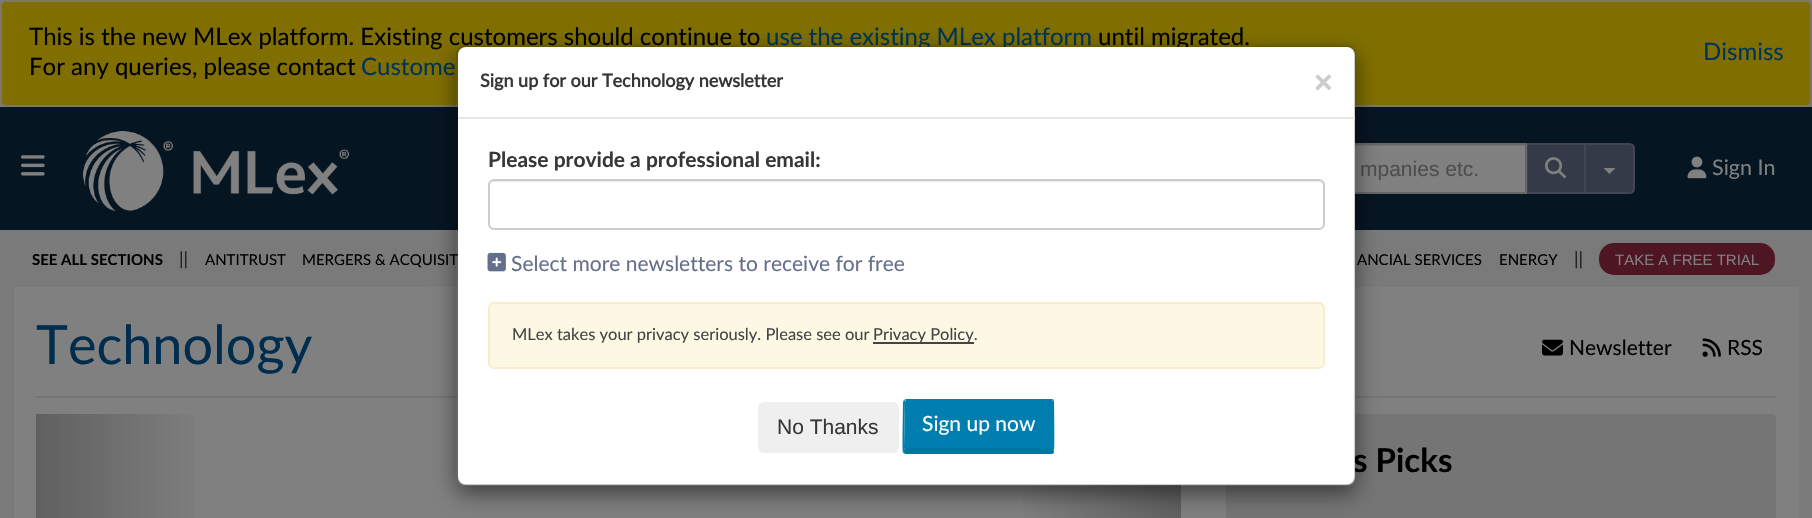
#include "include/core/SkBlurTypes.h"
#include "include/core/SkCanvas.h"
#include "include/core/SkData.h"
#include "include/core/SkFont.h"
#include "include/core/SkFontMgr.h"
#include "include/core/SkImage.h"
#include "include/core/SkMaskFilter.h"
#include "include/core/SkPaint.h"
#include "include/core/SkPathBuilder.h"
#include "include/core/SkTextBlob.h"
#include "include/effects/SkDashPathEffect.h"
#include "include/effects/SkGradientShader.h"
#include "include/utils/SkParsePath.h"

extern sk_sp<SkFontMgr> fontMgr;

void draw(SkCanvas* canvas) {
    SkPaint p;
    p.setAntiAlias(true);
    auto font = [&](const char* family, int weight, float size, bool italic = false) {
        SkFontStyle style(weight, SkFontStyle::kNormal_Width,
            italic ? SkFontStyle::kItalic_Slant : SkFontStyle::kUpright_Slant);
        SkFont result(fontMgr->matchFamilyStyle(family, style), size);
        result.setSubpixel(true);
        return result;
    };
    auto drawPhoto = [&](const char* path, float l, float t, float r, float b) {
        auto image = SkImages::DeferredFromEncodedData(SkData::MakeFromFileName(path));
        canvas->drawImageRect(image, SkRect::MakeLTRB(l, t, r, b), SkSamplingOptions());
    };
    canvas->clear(0xFF7A7A7A);
    p.setColor(0xFF806F00);
    canvas->drawRoundRect(SkRect::MakeLTRB(1, 1, 1811, 106), 5, 5, p);
    p.setStyle(SkPaint::kStroke_Style);
    p.setStrokeWidth(2);
    p.setColor(0xFF7D7666);
    canvas->drawRoundRect(SkRect::MakeLTRB(1, 1, 1811, 106), 5, 5, p);
    auto font1 = font("Lato", 400, 24);
    p.setStyle(SkPaint::kFill_Style);
    p.setColor(0xFF000000);
    canvas->drawString("This is the new MLex platform. Existing customers should continue to", 29, 45, font1, p);
    p.setColor(0xFF003459);
    canvas->drawString("use the existing MLex platform", 766, 45, font1, p);
    p.setColor(0xFF000000);
    canvas->drawString("until migrated.", 1098, 45, font1, p);
    canvas->drawString("For any queries, please contact", 29, 75, font1, p);
    p.setColor(0xFF003459);
    canvas->drawString("Custome", 361, 75, font1, p);
    canvas->drawString("Dismiss", 1703, 60, font1, p);
    p.setColor(0xFF061522);
    canvas->drawRect(SkRect::MakeLTRB(0, 107, 1812, 230), p);
    drawPhoto("media/1.png", 21, 155, 45, 176);
    drawPhoto("media/2.png", 83, 131, 349, 211);
    p.setColor(0xFF808080);
    canvas->drawRect(SkRect::MakeLTRB(1355, 146, 1525, 192), p);
    p.setColor(0xFF767676);
    canvas->drawPath(SkPathBuilder().moveTo(1161, 146).lineTo(1526, 146).lineTo(1526, 144).lineTo(1162, 144).cubicTo(1160, 144, 1158, 146, 1157, 148).cubicTo(1158, 147, 1160, 146, 1161, 146).close().detach(), p);
    p.setColor(0xFF353A49);
    canvas->drawRect(SkRect::MakeLTRB(1527, 144, 1585, 193), p);
    p.setStyle(SkPaint::kStroke_Style);
    p.setColor(0xFF404656);
    canvas->drawRect(SkRect::MakeLTRB(1527, 144, 1585, 193), p);
    p.setColor(0xFF666666);
    canvas->drawRect(SkRect::MakeLTRB(1156, 144, 1526, 193), p);
    canvas->save();
    canvas->clipRect(SkRect::MakeLTRB(1175, 156, 1508, 180));
    auto font2 = font("Liberation Sans", 400, 21);
    p.setStyle(SkPaint::kFill_Style);
    p.setColor(0xFF4D4D4D);
    canvas->drawString("mpanies etc.", 1360, 176, font2, p);
    canvas->restore();
    drawPhoto("media/3.png", 1545, 157, 1566, 179);
    p.setColor(0xFF353A49);
    canvas->drawPath(SkPathBuilder().moveTo(1585, 144).lineTo(1629, 144).cubicTo(1632, 144, 1634, 146, 1634, 149).lineTo(1634, 188).cubicTo(1634, 191, 1632, 193, 1629, 193).lineTo(1585, 193).close().detach(), p);
    p.setStyle(SkPaint::kStroke_Style);
    p.setColor(0xFF404656);
    canvas->drawPath(SkPathBuilder().moveTo(1585, 144).lineTo(1629, 144).cubicTo(1632, 144, 1634, 146, 1634, 149).lineTo(1634, 188).cubicTo(1634, 191, 1632, 193, 1629, 193).lineTo(1585, 193).close().detach(), p);
    p.setStyle(SkPaint::kFill_Style);
    p.setColor(0xFF808080);
    canvas->drawPath(SkPathBuilder().moveTo(1603.5f, 168).lineTo(1615.5f, 168).lineTo(1609.5f, 174).close().detach(), p);
    drawPhoto("media/4.png", 1687, 156, 1707, 179);
    auto font3 = font("Lato", 400, 21.5f);
    canvas->drawString("Sign In", 1712, 175, font3, p);
    auto font4 = font("Lato", 700, 15);
    p.setColor(0xFF000000);
    canvas->drawString("SEE ALL SECTIONS", 32, 265, font4, p);
    auto font5 = font("Lato", 400, 18);
    p.setColor(0xFF1C1C1D);
    canvas->drawString("||", 179, 265, font5, p);
    auto font6 = font("Lato", 400, 15);
    p.setColor(0xFF000000);
    {
        const struct { const char* s; float x, y; } items[] = {
            {"ANTITRUST", 205, 265},
            {"MERGERS & ACQUISIT", 302, 265},
            {"ANCIAL SERVICES", 1357, 265},
            {"ENERGY", 1499, 265},
        };
        for (auto [s, x, y] : items) {
            canvas->drawString(s, x, y, font6, p);
        }
    }
    p.setColor(0xFF1C1C1D);
    canvas->drawString("||", 1574, 265, font5, p);
    p.setColor(0xFF4E1622);
    canvas->drawRoundRect(SkRect::MakeLTRB(1599, 243, 1775, 275), 15, 15, p);
    auto font7 = font("Liberation Sans", 400, 15);
    p.setColor(0xFF808080);
    canvas->drawString("TAKE A FREE TRIAL", 1615, 265, font7, p);
    canvas->drawRect(SkRect::MakeLTRB(14, 287, 1799, 518), p);
    p.setColor(0xFF757575);
    canvas->drawRect(SkRect::MakeLTRB(36, 396, 1776, 398), p);
    auto font8 = font("Lato", 400, 54);
    p.setColor(0xFF002D4D);
    canvas->drawString("Technology", 36, 364, font8, p);
    drawPhoto("media/5.png", 1542, 339, 1563, 356);
    auto font9 = font("Lato", 400, 21);
    p.setColor(0xFF000000);
    canvas->drawString("Newsletter", 1569, 355, font9, p);
    drawPhoto("media/6.png", 1702, 338, 1721, 357);
    canvas->drawString("RSS", 1727, 355, font9, p);
    {
        const SkColor colors[] = {0xFF606060, 0xFF808080};
        const float stops[] = {0, 1};
        const SkPoint ends[] = {{36, 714}, {207, 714}};
        p.setShader(SkGradientShader::MakeLinear(ends, colors, stops, 2, SkTileMode::kClamp));
        p.setAlpha(255);
    }
    canvas->drawRect(SkRect::MakeLTRB(36, 414, 194, 518), p);
    {
        const SkColor colors[] = {0xFF808080, 0xFF606060};
        const float stops[] = {0, 1};
        const SkPoint ends[] = {{1010, 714}, {1181, 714}};
        p.setShader(SkGradientShader::MakeLinear(ends, colors, stops, 2, SkTileMode::kClamp));
        p.setAlpha(255);
    }
    canvas->drawRect(SkRect::MakeLTRB(1023, 485, 1181, 518), p);
    p.setShader(nullptr);
    p.setColor(0xFF757575);
    canvas->drawRoundRect(SkRect::MakeLTRB(1226, 414, 1776, 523), 5, 5, p);
    auto font10 = font("Lato", 700, 33);
    p.setColor(0xFF000000);
    canvas->drawString("s Picks", 1353, 472, font10, p);
    canvas->save();
    canvas->clipPath(SkPathBuilder(SkPathFillType::kEvenOdd).moveTo(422, 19).lineTo(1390, 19).lineTo(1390, 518).lineTo(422, 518).close().moveTo(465, 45).lineTo(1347, 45).cubicTo(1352, 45, 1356, 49, 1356, 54).lineTo(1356, 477).cubicTo(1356, 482, 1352, 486, 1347, 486).lineTo(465, 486).cubicTo(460, 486, 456, 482, 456, 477).lineTo(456, 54).cubicTo(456, 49, 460, 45, 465, 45).close().detach(), true);
    p.setColor(0x80000000);
    p.setMaskFilter(SkMaskFilter::MakeBlur(kNormal_SkBlurStyle, 11));
    canvas->drawRoundRect(SkRect::MakeLTRB(456, 53, 1356, 494), 9, 9, p);
    p.setMaskFilter(nullptr);
    canvas->restore();
    p.setColor(0xFFFFFFFF);
    canvas->drawRoundRect(SkRect::MakeLTRB(458, 47, 1355, 485), 8, 8, p);
    p.setStyle(SkPaint::kStroke_Style);
    p.setColor(0x33000000);
    canvas->drawRoundRect(SkRect::MakeLTRB(457, 46, 1355, 485), 8, 8, p);
    p.setStyle(SkPaint::kFill_Style);
    p.setColor(0xFFE5E5E5);
    canvas->drawRect(SkRect::MakeLTRB(458, 117, 1355, 119), p);
    auto font11 = font("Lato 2", 700, 18);
    p.setColor(0xFF373739);
    canvas->drawString("Sign up for our Technology newsletter", 480, 87, font11, p);
    auto font12 = font("Liberation Sans", 700, 32);
    p.setColor(0xFFCCCCCC);
    canvas->drawString("×", 1314, 93, font12, p);
    auto font13 = font("Lato", 700, 21);
    p.setColor(0xFF373739);
    canvas->drawString("Please provide a professional email:", 488, 167, font13, p);
    p.setColor(0xFFECECEC);
    canvas->drawPath(SkPathBuilder().moveTo(494, 182).lineTo(1318, 182).cubicTo(1321, 182, 1323, 184, 1323, 186).lineTo(1323, 185).cubicTo(1323, 182, 1321, 180, 1318, 180).lineTo(494, 180).cubicTo(491, 180, 489, 182, 489, 185).lineTo(489, 186).cubicTo(489, 184, 491, 182, 494, 182).close().detach(), p);
    p.setStyle(SkPaint::kStroke_Style);
    p.setColor(0xFFCCCCCC);
    canvas->drawRoundRect(SkRect::MakeLTRB(489, 180, 1324, 229), 5, 5, p);
    drawPhoto("media/7.png", 487, 252, 506, 272);
    p.setStyle(SkPaint::kFill_Style);
    p.setColor(0xFF646F8C);
    canvas->drawString("Select more newsletters to receive for free", 511, 271, font9, p);
    p.setColor(0xFFFCF8E3);
    canvas->drawRoundRect(SkRect::MakeLTRB(489, 303, 1324, 368), 5, 5, p);
    p.setStyle(SkPaint::kStroke_Style);
    p.setColor(0xFFFAEBCC);
    canvas->drawRoundRect(SkRect::MakeLTRB(489, 303, 1324, 368), 5, 5, p);
    auto font14 = font("Lato", 400, 16.5f);
    p.setStyle(SkPaint::kFill_Style);
    p.setColor(0xFF444444);
    canvas->drawString("MLex takes your privacy seriously. Please see our", 512, 340, font14, p);
    canvas->drawRect(SkRect::MakeLTRB(873, 342, 974, 344), p);
    canvas->drawString("Privacy Policy.", 873, 340, font14, p);
    p.setColor(0xFFEFEFEF);
    canvas->drawRoundRect(SkRect::MakeLTRB(758, 402, 899, 453), 6, 6, p);
    p.setColor(0xFF373739);
    canvas->drawString("No Thanks", 777, 434, font2, p);
    p.setColor(0xFF007EB0);
    canvas->drawPath(SkPathBuilder().moveTo(906, 400).lineTo(1052, 400).cubicTo(1052, 400, 1053, 401, 1053, 402).lineTo(1053, 448).lineTo(904, 448).lineTo(905, 402).close().detach(), p);
    canvas->drawPath(SkPathBuilder().moveTo(906, 399).lineTo(904, 400).lineTo(905, 401).lineTo(906, 400).lineTo(1052, 400).lineTo(1053, 401).lineTo(1054, 400).lineTo(1052, 399).close().detach(), p);
    canvas->drawPath(SkPathBuilder().moveTo(1054, 400).cubicTo(1054, 401, 1055, 449, 1054, 452).lineTo(1053, 448).lineTo(1053, 401).close().detach(), p);
    p.setColor(0xFF0076A4);
    canvas->drawPath(SkPathBuilder().moveTo(1054, 452).cubicTo(1054, 453, 1053, 454, 1052, 454).lineTo(906, 454).lineTo(903, 453).lineTo(905, 448).lineTo(1053, 448).close().detach(), p);
    p.setColor(0xFF007EB0);
    canvas->drawPath(SkPathBuilder().moveTo(903, 402).cubicTo(903, 407, 902, 452, 903, 453).lineTo(905, 448).lineTo(904, 448).lineTo(905, 401).lineTo(904, 400).close().detach(), p);
    p.setColor(0xFFFFFFFF);
    canvas->drawString("Sign up now", 922, 431, font9, p);
}
